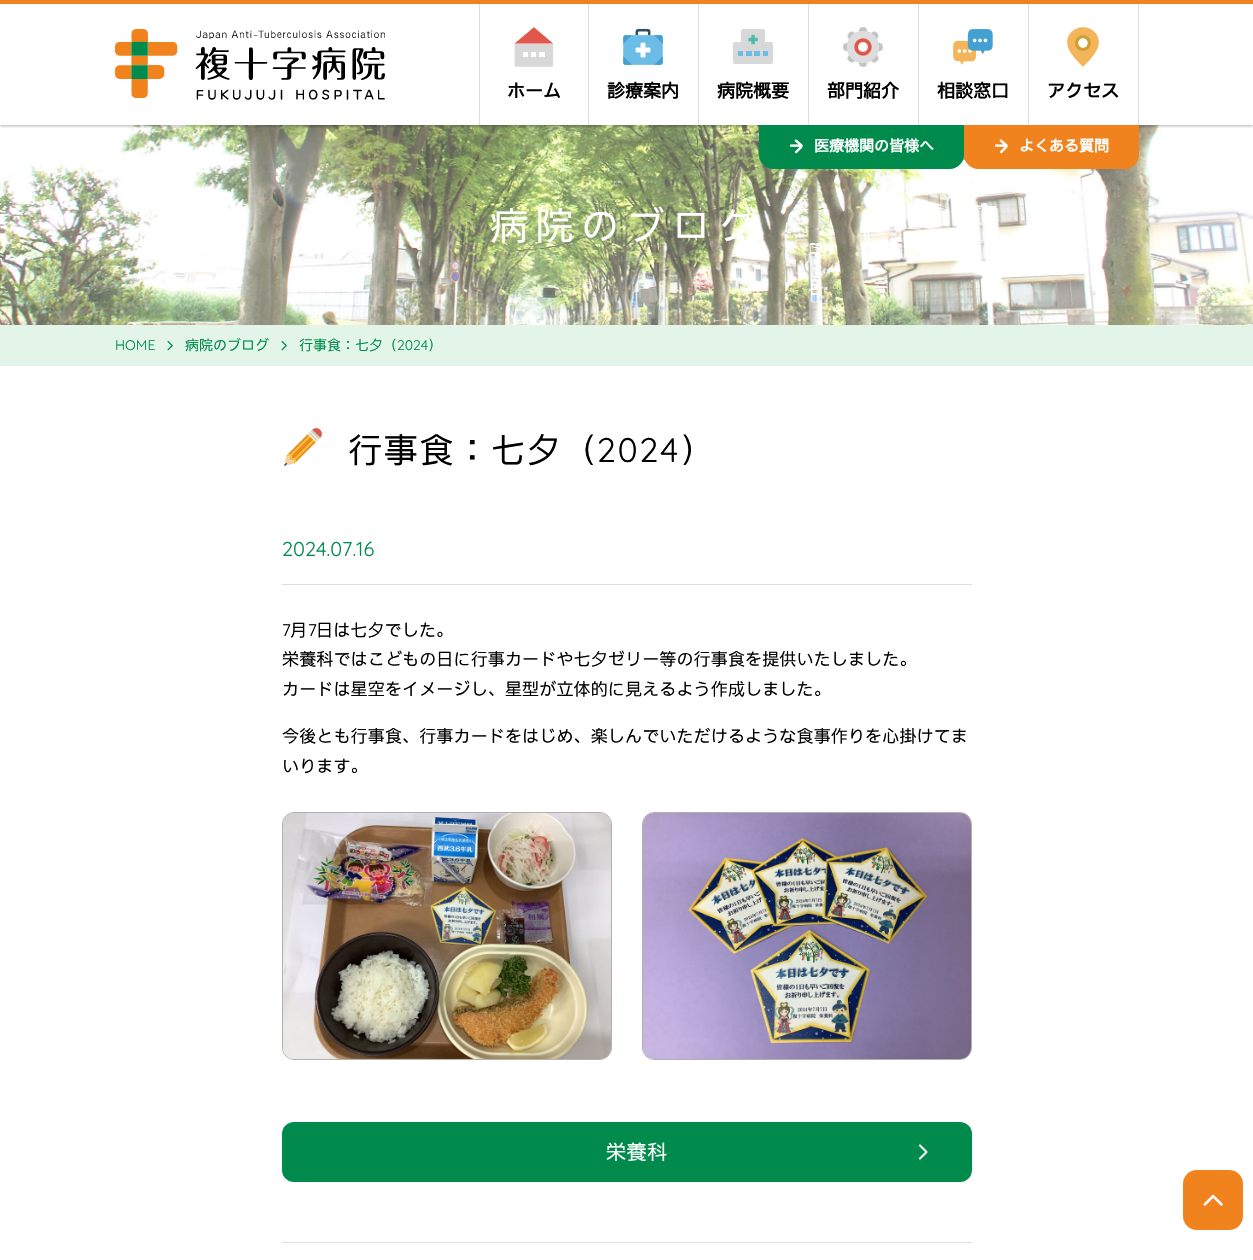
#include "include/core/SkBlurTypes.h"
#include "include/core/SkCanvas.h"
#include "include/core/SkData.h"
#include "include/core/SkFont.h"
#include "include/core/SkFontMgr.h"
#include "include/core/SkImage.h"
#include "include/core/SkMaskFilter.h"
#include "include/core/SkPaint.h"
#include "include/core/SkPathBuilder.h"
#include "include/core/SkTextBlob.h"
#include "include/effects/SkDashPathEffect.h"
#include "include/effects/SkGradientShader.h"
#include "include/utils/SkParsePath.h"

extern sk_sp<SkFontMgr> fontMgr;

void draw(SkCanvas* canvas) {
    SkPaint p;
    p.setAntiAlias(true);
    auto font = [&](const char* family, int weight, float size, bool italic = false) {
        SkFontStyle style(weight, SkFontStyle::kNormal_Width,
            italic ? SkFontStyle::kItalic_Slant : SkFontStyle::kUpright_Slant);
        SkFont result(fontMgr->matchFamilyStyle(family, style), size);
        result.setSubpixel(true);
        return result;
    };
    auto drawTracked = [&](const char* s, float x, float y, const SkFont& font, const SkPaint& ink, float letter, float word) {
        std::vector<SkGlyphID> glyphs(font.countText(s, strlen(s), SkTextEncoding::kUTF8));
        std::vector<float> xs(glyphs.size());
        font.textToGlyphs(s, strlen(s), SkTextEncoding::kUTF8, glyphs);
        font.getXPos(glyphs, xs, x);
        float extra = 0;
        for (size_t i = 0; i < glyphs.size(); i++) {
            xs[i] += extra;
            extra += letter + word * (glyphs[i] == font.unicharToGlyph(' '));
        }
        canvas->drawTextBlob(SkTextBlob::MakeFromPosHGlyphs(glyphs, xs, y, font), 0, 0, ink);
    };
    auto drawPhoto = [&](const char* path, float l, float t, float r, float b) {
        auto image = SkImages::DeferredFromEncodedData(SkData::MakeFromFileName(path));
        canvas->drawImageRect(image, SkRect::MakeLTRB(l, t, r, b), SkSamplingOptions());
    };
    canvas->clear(0xFFFFFFFF);
    drawPhoto("media/10.png", 0, 125, 1253, 325);
    canvas->save();
    canvas->clipRect(SkRect::MakeLTRB(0, 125, 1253, 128));
    p.setColor(0x4D000000);
    p.setMaskFilter(SkMaskFilter::MakeBlur(kNormal_SkBlurStyle, 1.5f));
    canvas->drawRect(SkRect::MakeLTRB(0, 1, 1253, 126), p);
    p.setMaskFilter(nullptr);
    canvas->restore();
    p.setColor(0xFFF0831E);
    canvas->drawRect(SkRect::MakeLTRB(0, 0, 1253, 4), p);
    drawPhoto("media/1.png", 115, 29, 385, 100);
    p.setColor(0xFFDDDDDD);
    canvas->drawRect(SkRect::MakeLTRB(588, 4, 589, 125), p);
    canvas->drawRect(SkRect::MakeLTRB(479, 4, 480, 125), p);
    drawPhoto("media/2.png", 514, 27, 554, 67);
    auto font1 = font("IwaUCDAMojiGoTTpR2", 700, 18);
    p.setColor(0xFF000000);
    canvas->drawString("ホーム", 507, 97, font1, p);
    p.setColor(0xFFDDDDDD);
    canvas->drawRect(SkRect::MakeLTRB(698, 4, 699, 125), p);
    drawPhoto("media/3.png", 623, 28, 663, 65);
    p.setColor(0xFF000000);
    canvas->drawString("診療案内", 607, 97, font1, p);
    p.setColor(0xFF008B4D);
    canvas->drawPath(SkPathBuilder().moveTo(759, 124).lineTo(964, 124).lineTo(964, 155).cubicTo(964, 162.5f, 957.5f, 169, 950, 169).lineTo(773, 169).cubicTo(765.5f, 169, 759, 162.5f, 759, 155).close().detach(), p);
    p.setColor(0xFFDDDDDD);
    canvas->drawRect(SkRect::MakeLTRB(808, 4, 809, 125), p);
    p.setColor(0xFFFFFFFF);
    canvas->drawRect(SkRect::MakeLTRB(759, 124, 808, 125), p);
    drawPhoto("media/4.png", 733, 29, 773, 64);
    p.setColor(0xFF000000);
    canvas->drawString("病院概要", 717, 97, font1, p);
    p.setColor(0xFFDDDDDD);
    canvas->drawRect(SkRect::MakeLTRB(918, 4, 919, 125), p);
    p.setColor(0xFFFFFFFF);
    canvas->drawRect(SkRect::MakeLTRB(809, 124, 918, 125), p);
    drawPhoto("media/5.png", 843, 27, 883, 67);
    p.setColor(0xFF000000);
    canvas->drawString("部門紹介", 827, 97, font1, p);
    p.setColor(0xFFF0831E);
    canvas->drawPath(SkPathBuilder().moveTo(964, 124).lineTo(1139, 124).lineTo(1139, 155).cubicTo(1139, 162.5f, 1132.5f, 169, 1125, 169).lineTo(978, 169).cubicTo(970.5f, 169, 964, 162.5f, 964, 155).close().detach(), p);
    p.setColor(0xFFDDDDDD);
    canvas->drawRect(SkRect::MakeLTRB(1028, 4, 1029, 125), p);
    p.setColor(0xFFFFFFFF);
    canvas->drawRect(SkRect::MakeLTRB(919, 124, 1028, 125), p);
    drawPhoto("media/6.png", 953, 29, 993, 65);
    p.setColor(0xFF000000);
    canvas->drawString("相談窓口", 937, 97, font1, p);
    p.setColor(0xFFDDDDDD);
    canvas->drawRect(SkRect::MakeLTRB(1138, 4, 1139, 125), p);
    p.setColor(0xFFFFFFFF);
    canvas->drawRect(SkRect::MakeLTRB(1029, 124, 1138, 125), p);
    drawPhoto("media/7.png", 1067, 27, 1099, 67);
    p.setColor(0xFF000000);
    canvas->drawString("アクセス", 1047, 97, font1, p);
    drawPhoto("media/8.png", 789, 139, 803, 154);
    auto font2 = font("IwaUCDAMojiGoTTpR2", 700, 15);
    p.setColor(0xFFFFFFFF);
    canvas->drawString("医療機関の皆様へ", 814, 151, font2, p);
    drawPhoto("media/9.png", 994, 139, 1008, 154);
    canvas->drawString("よくある質問", 1019, 151, font2, p);
    auto font3 = font("IwaUCDAMojiGoTTpR2", 400, 38);
    drawTracked("病院のブログ", 490, 239, font3, p, 7.5f, 0);
    p.setColor(0xFFE2F5E8);
    canvas->drawRect(SkRect::MakeLTRB(0, 325, 1253, 366), p);
    auto font4 = font("Quicksand", 400, 14);
    p.setColor(0xFF008B4D);
    canvas->drawString("HOME", 115, 350, font4, p);
    drawPhoto("media/11.png", 167, 341, 173, 351);
    auto font5 = font("IwaUCDAMojiGoTTpR2", 400, 14);
    canvas->drawString("病院のブログ", 185, 350, font5, p);
    drawPhoto("media/11.png", 281, 341, 287, 351);
    canvas->drawString("行事食：七夕（", 299, 350, font5, p);
    canvas->drawString("2024", 397, 350, font4, p);
    canvas->drawString("）", 428, 350, font5, p);
    drawPhoto("media/12.png", 284, 428, 322, 466);
    auto font6 = font("IwaUCDAMojiGoTTpR2", 400, 34);
    p.setColor(0xFF000000);
    drawTracked("行事食：七夕（", 348, 462, font6, p, 1.75f, 0);
    auto font7 = font("Quicksand", 400, 34);
    drawTracked("2024", 597, 462, font7, p, 1.75f, 0);
    drawTracked("）", 680, 462, font6, p, 1.75f, 0);
    p.setColor(0xFFDDDDDD);
    canvas->drawRect(SkRect::MakeLTRB(282, 584, 972, 585), p);
    auto font8 = font("Quicksand", 400, 20);
    p.setColor(0xFF008B4D);
    canvas->drawString("2024.07.16", 282, 556, font8, p);
    auto font9 = font("Quicksand", 400, 17);
    p.setColor(0xFF000000);
    drawTracked("7", 282, 636, font9, p, 0.15f, 0);
    auto font10 = font("IwaUCDAMojiGoTTpR2", 400, 17);
    drawTracked("月", 290, 636, font10, p, 0.15f, 0);
    drawTracked("7", 308, 636, font9, p, 0.15f, 0);
    {
        const struct { const char* s; float x, y; } items[] = {
            {"日は七夕でした。", 316, 636},
            {"栄養科ではこどもの日に行事カードや七夕ゼリー等の行事食を提供いたしました。", 282, 665},
            {"カードは星空をイメージし、星型が立体的に見えるよう作成しました。", 282, 695},
            {"今後とも行事食、行事カードをはじめ、楽しんでいただけるような食事作りを心掛けてま", 282, 742},
            {"いります。", 282, 772},
        };
        for (auto [s, x, y] : items) {
            drawTracked(s, x, y, font10, p, 0.15f, 0);
        }
    }
    p.setStyle(SkPaint::kStroke_Style);
    p.setStrokeWidth(1);
    p.setColor(0xFFB1B1B1);
    canvas->drawRoundRect(SkRect::MakeLTRB(282.5f, 812.5f, 611.5f, 1059.5f), 11.5f, 11.5f, p);
    drawPhoto("media/13.png", 283, 813, 611, 1059);
    canvas->drawRoundRect(SkRect::MakeLTRB(642.5f, 812.5f, 971.5f, 1059.5f), 11.5f, 11.5f, p);
    drawPhoto("media/14.png", 643, 813, 971, 1059);
    p.setStyle(SkPaint::kFill_Style);
    p.setColor(0xFF008B4D);
    canvas->drawRoundRect(SkRect::MakeLTRB(282, 1122, 972, 1182), 12, 12, p);
    auto font11 = font("IwaUCDAMojiGoTTpR2", 400, 20);
    p.setColor(0xFFFFFFFF);
    drawTracked("栄養科", 606, 1159, font11, p, 0.5f, 0);
    drawPhoto("media/15.png", 918, 1144, 928, 1160);
    p.setColor(0xFFDDDDDD);
    canvas->drawRect(SkRect::MakeLTRB(282, 1242, 972, 1243), p);
    p.setColor(0xFFF0831E);
    canvas->drawRoundRect(SkRect::MakeLTRB(1183, 1170, 1243, 1230), 14, 14, p);
    drawPhoto("media/16.png", 1203, 1194, 1223, 1206);
}
